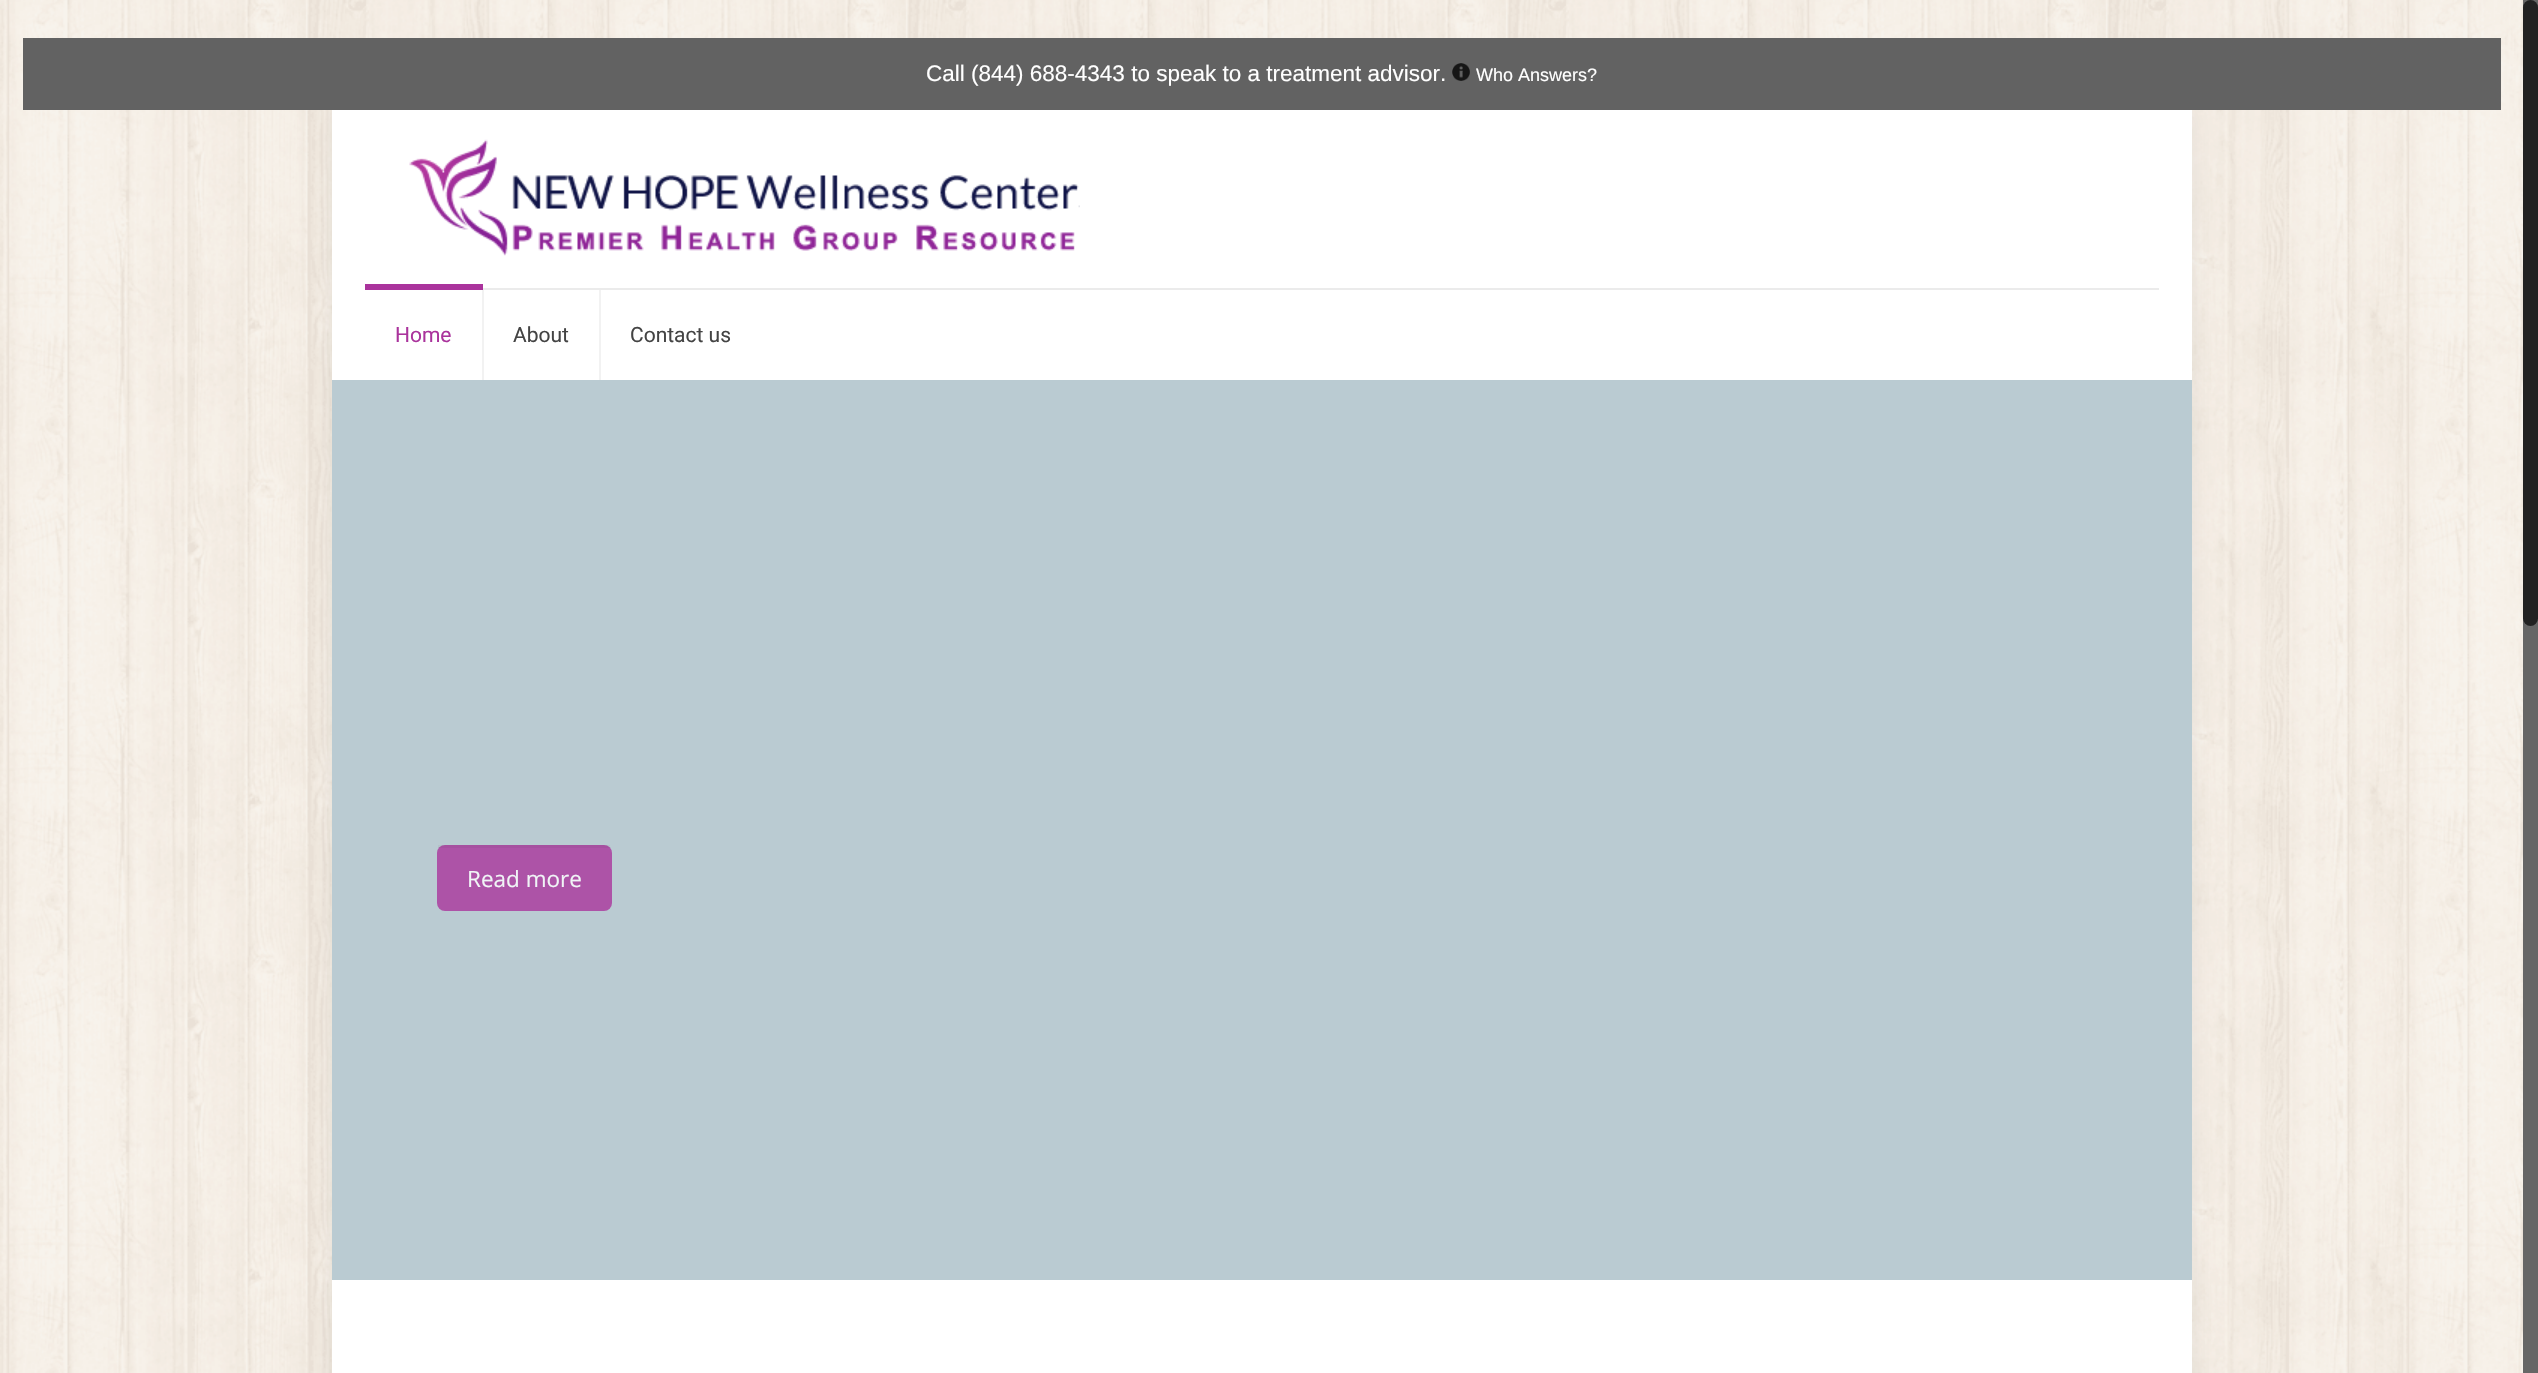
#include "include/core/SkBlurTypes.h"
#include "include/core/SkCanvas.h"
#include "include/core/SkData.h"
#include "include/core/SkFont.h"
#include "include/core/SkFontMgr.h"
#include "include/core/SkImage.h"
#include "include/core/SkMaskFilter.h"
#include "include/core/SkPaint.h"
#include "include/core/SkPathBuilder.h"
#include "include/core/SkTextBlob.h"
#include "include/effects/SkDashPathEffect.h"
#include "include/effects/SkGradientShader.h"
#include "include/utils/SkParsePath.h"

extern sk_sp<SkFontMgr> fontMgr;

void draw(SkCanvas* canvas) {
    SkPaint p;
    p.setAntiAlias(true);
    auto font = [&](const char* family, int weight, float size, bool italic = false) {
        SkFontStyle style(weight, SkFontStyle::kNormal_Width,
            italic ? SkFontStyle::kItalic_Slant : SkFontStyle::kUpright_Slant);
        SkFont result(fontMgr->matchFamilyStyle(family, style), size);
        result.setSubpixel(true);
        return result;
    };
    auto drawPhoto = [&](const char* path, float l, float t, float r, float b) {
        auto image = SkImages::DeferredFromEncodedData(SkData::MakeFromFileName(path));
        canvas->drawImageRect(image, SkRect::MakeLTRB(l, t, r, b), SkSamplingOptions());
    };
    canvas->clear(0xFFFFFFFF);
    drawPhoto("media/1.png", 0, 0, 2523, 1373);
    p.setColor(0x0F000000);
    p.setMaskFilter(SkMaskFilter::MakeBlur(kNormal_SkBlurStyle, 11));
    canvas->drawRect(SkRect::MakeLTRB(332, 110, 2192, 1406), p);
    p.setMaskFilter(nullptr);
    p.setColor(0xFF626262);
    canvas->drawRect(SkRect::MakeLTRB(23, 38, 2501, 110), p);
    auto font1 = font("Liberation Sans", 400, 22.5f);
    p.setColor(0xFFFFFFFF);
    canvas->drawString("Call (844) 688-4343 to speak to a treatment advisor.", 926, 81, font1, p);
    drawPhoto("media/2.png", 1452, 63, 1470, 81);
    auto font2 = font("Liberation Sans", 400, 18);
    canvas->drawString("Who Answers?", 1476, 81, font2, p);
    p.setColor(0xFF666666);
    canvas->drawRect(SkRect::MakeLTRB(2523, 0, 2538, 1373), p);
    p.setColor(0xFF222222);
    canvas->drawRoundRect(SkRect::MakeLTRB(2523, 0, 2538, 626), 7.5f, 7.5f, p);
    {
        const struct { float l, t, r, b; SkColor color; } items[] = {
            {332, 380, 2192, 1280, 0xFFBACBD2},
            {332, 110, 2192, 380, 0xFFFFFFFF},
            {483, 288, 2159, 290, 0xFFEBEBEB},
        };
        for (auto [l, t, r, b, color] : items) {
            p.setColor(color);
            canvas->drawRect(SkRect::MakeLTRB(l, t, r, b), p);
        }
    }
    drawPhoto("media/3.png", 409, 139, 1080, 256);
    p.setColor(0xFFAA339C);
    canvas->drawRect(SkRect::MakeLTRB(365, 284, 483, 290), p);
    p.setColor(0xFFF2F2F2);
    canvas->drawRect(SkRect::MakeLTRB(482, 290, 484, 380), p);
    auto font3 = font("Roboto", 400, 21);
    p.setColor(0xFFAA339C);
    canvas->drawString("Home", 395, 342, font3, p);
    p.setColor(0xFFF2F2F2);
    canvas->drawRect(SkRect::MakeLTRB(599, 290, 601, 380), p);
    p.setColor(0xFF444444);
    canvas->drawString("About", 513, 342, font3, p);
    canvas->drawString("Contact us", 630, 342, font3, p);
    p.setColor(0xFFAD53A7);
    canvas->drawRoundRect(SkRect::MakeLTRB(437, 845, 612, 911), 8, 8, p);
    p.setColor(0x0A000000);
    canvas->drawRect(SkRect::MakeLTRB(438, 845, 610, 848), p);
    auto font4 = font("Open Sans", 400, 22.5f);
    p.setColor(0xFFF0F4F6);
    canvas->drawString("Read more", 467, 887, font4, p);
    p.setColor(0xFFFFFFFF);
    canvas->drawRect(SkRect::MakeLTRB(332, 1280, 2192, 1373), p);
}
